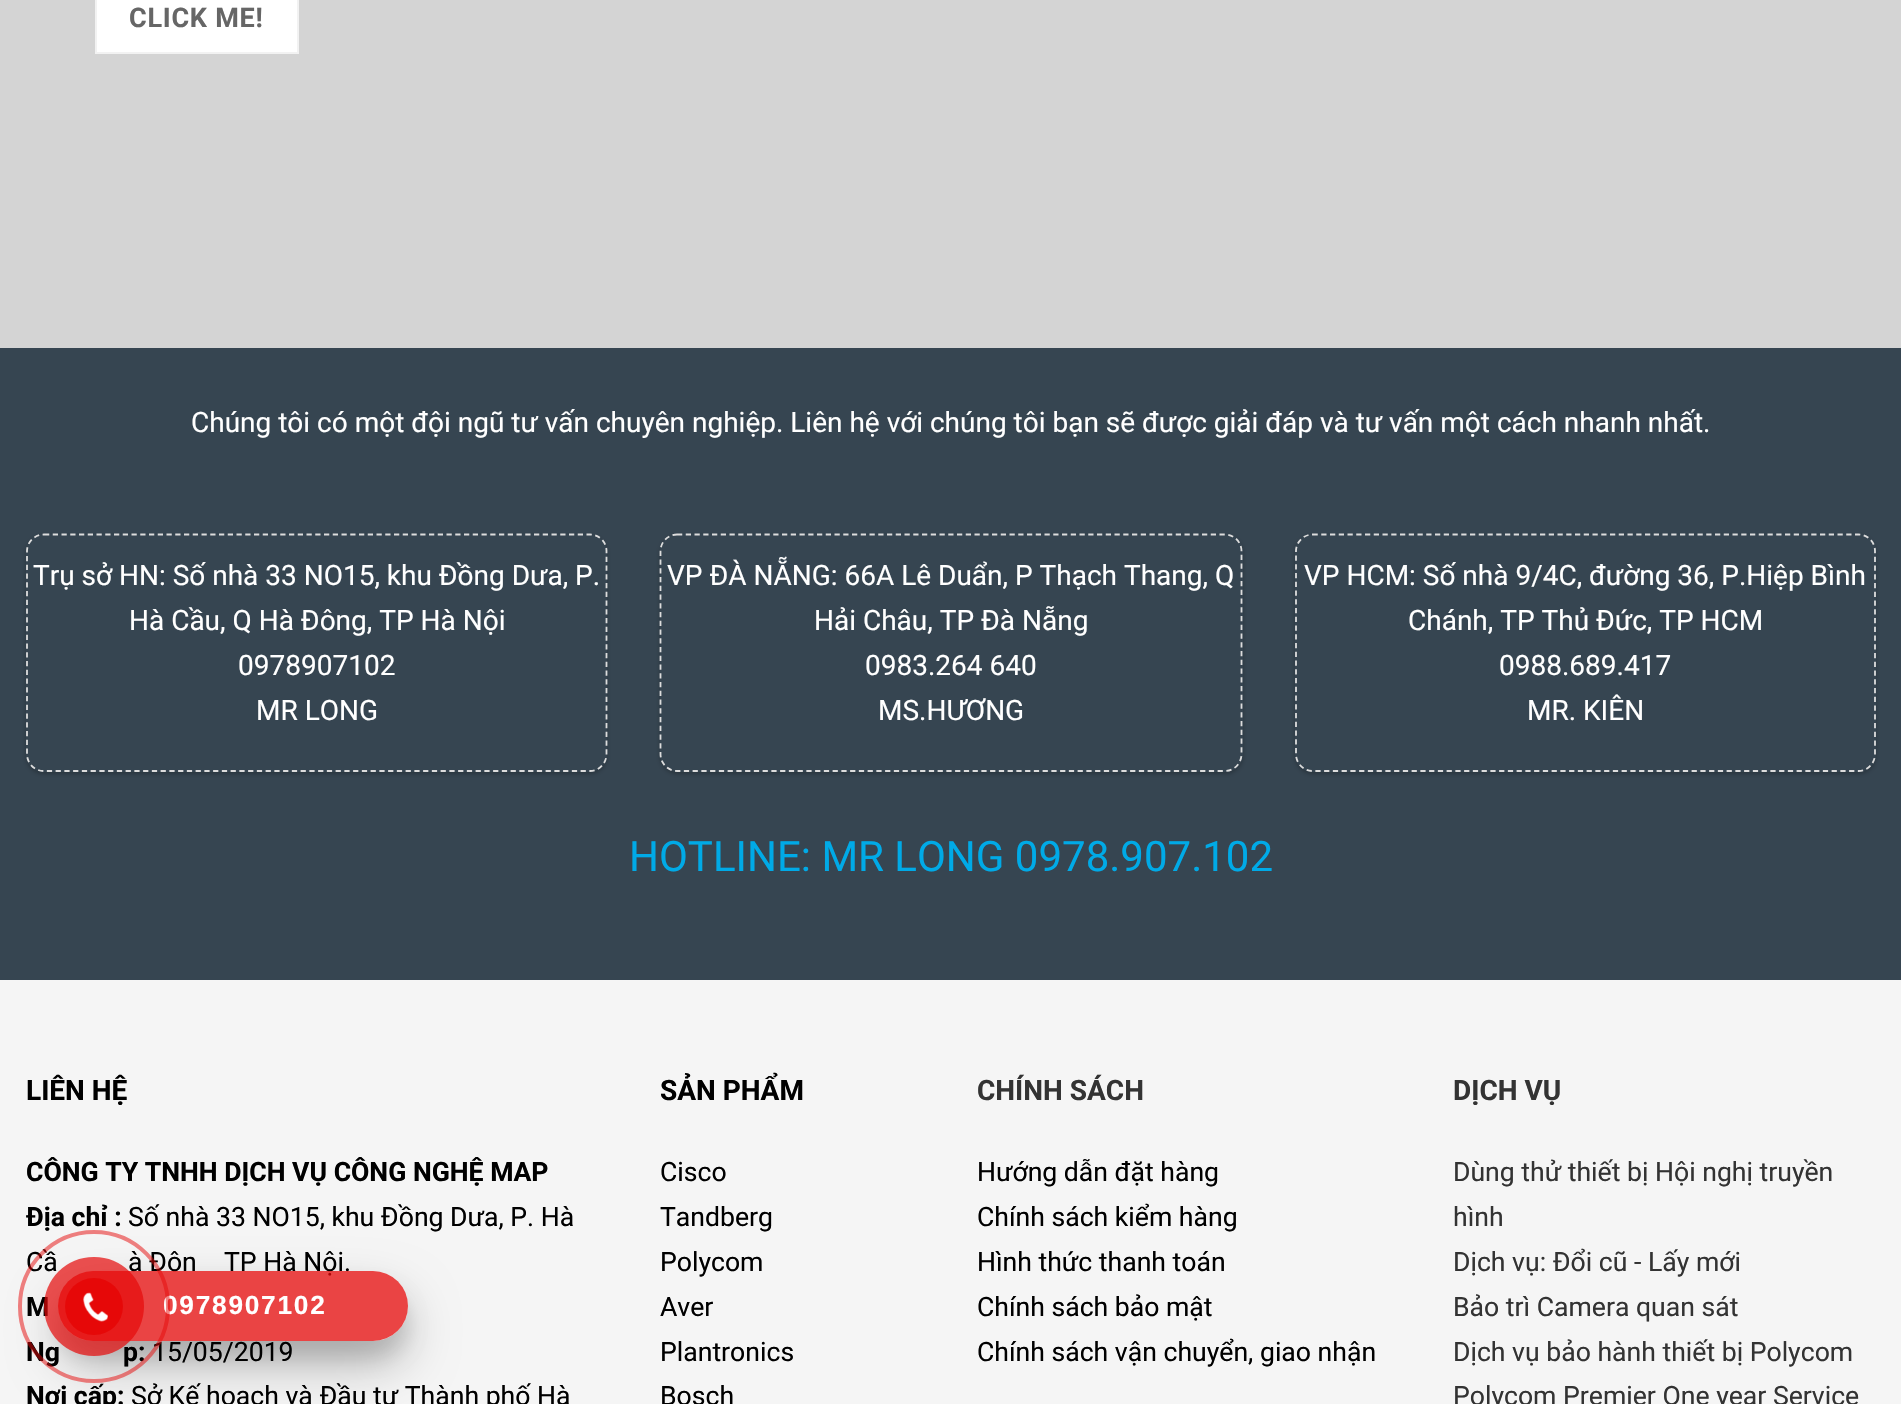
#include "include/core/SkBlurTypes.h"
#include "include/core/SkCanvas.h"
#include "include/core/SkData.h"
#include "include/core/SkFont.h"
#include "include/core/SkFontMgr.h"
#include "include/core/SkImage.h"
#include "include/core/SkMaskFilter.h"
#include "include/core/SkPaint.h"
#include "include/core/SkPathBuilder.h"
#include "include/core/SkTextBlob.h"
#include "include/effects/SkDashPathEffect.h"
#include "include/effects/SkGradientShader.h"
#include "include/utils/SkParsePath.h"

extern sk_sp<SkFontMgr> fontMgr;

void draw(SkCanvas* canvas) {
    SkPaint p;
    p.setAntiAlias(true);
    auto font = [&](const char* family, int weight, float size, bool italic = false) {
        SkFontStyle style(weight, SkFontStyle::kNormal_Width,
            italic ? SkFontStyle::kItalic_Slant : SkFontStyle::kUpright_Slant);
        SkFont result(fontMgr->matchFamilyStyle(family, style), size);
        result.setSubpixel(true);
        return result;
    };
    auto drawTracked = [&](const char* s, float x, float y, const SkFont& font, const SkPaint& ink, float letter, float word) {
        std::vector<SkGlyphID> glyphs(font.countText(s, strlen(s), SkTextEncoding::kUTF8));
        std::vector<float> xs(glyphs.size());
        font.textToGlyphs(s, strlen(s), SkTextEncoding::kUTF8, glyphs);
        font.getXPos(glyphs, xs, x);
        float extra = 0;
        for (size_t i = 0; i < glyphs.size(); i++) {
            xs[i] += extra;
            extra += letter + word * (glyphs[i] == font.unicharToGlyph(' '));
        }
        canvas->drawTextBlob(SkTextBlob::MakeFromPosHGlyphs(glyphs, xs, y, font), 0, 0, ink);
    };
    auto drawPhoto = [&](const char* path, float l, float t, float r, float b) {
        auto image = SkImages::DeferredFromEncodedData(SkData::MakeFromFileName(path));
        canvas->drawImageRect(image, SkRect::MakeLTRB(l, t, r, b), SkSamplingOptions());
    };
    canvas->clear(0xFFD4D4D4);
    p.setColor(0xFFFFFFFF);
    canvas->drawRect(SkRect::MakeLTRB(96, -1, 298, 53), p);
    p.setStyle(SkPaint::kStroke_Style);
    p.setStrokeWidth(2);
    p.setColor(0xFFF2F2F2);
    canvas->drawRect(SkRect::MakeLTRB(96, -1, 298, 53), p);
    auto font1 = font("Roboto", 700, 27);
    p.setStyle(SkPaint::kFill_Style);
    p.setColor(0xFF666666);
    drawTracked("CLICK ME!", 129, 27, font1, p, 0.75f, 0);
    p.setColor(0xFF364551);
    canvas->drawRect(SkRect::MakeLTRB(0, 348, 1901, 980), p);
    auto font2 = font("Roboto", 400, 28);
    p.setColor(0xFFFFFFFF);
    canvas->drawString("Chúng tôi có một đội ngũ tư vấn chuyên nghiệp. Liên hệ với chúng tôi bạn sẽ được giải đáp và tư vấn một cách nhanh nhất.", 191, 432, font2, p);
    canvas->save();
    canvas->clipPath(SkPathBuilder(SkPathFillType::kEvenOdd).moveTo(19, 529).lineTo(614, 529).lineTo(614, 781).lineTo(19, 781).close().moveTo(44, 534).lineTo(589, 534).cubicTo(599, 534, 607, 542, 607, 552).lineTo(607, 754).cubicTo(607, 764, 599, 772, 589, 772).lineTo(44, 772).cubicTo(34, 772, 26, 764, 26, 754).lineTo(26, 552).cubicTo(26, 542, 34, 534, 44, 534).close().detach(), true);
    p.setColor(0x3D000000);
    p.setMaskFilter(SkMaskFilter::MakeBlur(kNormal_SkBlurStyle, 2));
    canvas->drawRoundRect(SkRect::MakeLTRB(26, 536, 607, 774), 18, 18, p);
    p.setMaskFilter(nullptr);
    canvas->restore();
    p.setStyle(SkPaint::kStroke_Style);
    p.setStrokeWidth(1.8f);
    p.setColor(0xFFDDDDDD);
    p.setPathEffect(SkDashPathEffect::Make({{5.25f, 3.5f}}, 0));
    canvas->drawPath(SkPathBuilder().moveTo(44, 534.5f).lineTo(590, 534.5f).cubicTo(599, 534.5f, 606.5f, 542, 606.5f, 551).lineTo(606.5f, 754).cubicTo(606.5f, 763.5f, 599, 771, 590, 771).lineTo(44, 771).cubicTo(34.5f, 771, 27, 763.5f, 27, 754).lineTo(27, 551).cubicTo(27, 542, 34.5f, 534.5f, 44, 534.5f).close().detach(), p);
    p.setPathEffect(nullptr);
    p.setStyle(SkPaint::kFill_Style);
    p.setColor(0xFFFFFFFF);
    {
        const struct { const char* s; float x, y; } items[] = {
            {"Trụ sở HN: Số nhà 33 NO15, khu Đồng Dưa, P.", 33, 585},
            {"Hà Cầu, Q Hà Đông, TP Hà Nội", 129, 630},
            {"0978907102", 238, 675},
            {"MR LONG", 256, 720},
        };
        for (auto [s, x, y] : items) {
            canvas->drawString(s, x, y, font2, p);
        }
    }
    canvas->save();
    canvas->clipPath(SkPathBuilder(SkPathFillType::kEvenOdd).moveTo(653, 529).lineTo(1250, 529).lineTo(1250, 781).lineTo(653, 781).close().moveTo(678, 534).lineTo(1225, 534).cubicTo(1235, 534, 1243, 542, 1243, 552).lineTo(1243, 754).cubicTo(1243, 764, 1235, 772, 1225, 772).lineTo(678, 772).cubicTo(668, 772, 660, 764, 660, 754).lineTo(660, 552).cubicTo(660, 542, 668, 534, 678, 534).close().detach(), true);
    p.setColor(0x3D000000);
    p.setMaskFilter(SkMaskFilter::MakeBlur(kNormal_SkBlurStyle, 2));
    canvas->drawRoundRect(SkRect::MakeLTRB(660, 536, 1243, 774), 18, 18, p);
    p.setMaskFilter(nullptr);
    canvas->restore();
    p.setStyle(SkPaint::kStroke_Style);
    p.setColor(0xFFDDDDDD);
    p.setPathEffect(SkDashPathEffect::Make({{5.25f, 3.5f}}, 0));
    canvas->drawPath(SkPathBuilder().moveTo(677, 534.5f).lineTo(1225, 534.5f).cubicTo(1234, 534.5f, 1241.5f, 542, 1241.5f, 551).lineTo(1241.5f, 754).cubicTo(1241.5f, 763.5f, 1234, 771, 1225, 771).lineTo(677, 771).cubicTo(668, 771, 660.5f, 763.5f, 660.5f, 754).lineTo(660.5f, 551).cubicTo(660.5f, 542, 668, 534.5f, 677, 534.5f).close().detach(), p);
    p.setPathEffect(nullptr);
    p.setStyle(SkPaint::kFill_Style);
    p.setColor(0xFFFFFFFF);
    {
        const struct { const char* s; float x, y; } items[] = {
            {"VP ĐÀ NẴNG: 66A Lê Duẩn, P Thạch Thang, Q", 667, 585},
            {"Hải Châu, TP Đà Nẵng", 814, 630},
            {"0983.264 640", 865, 675},
            {"MS.HƯƠNG", 878, 720},
        };
        for (auto [s, x, y] : items) {
            canvas->drawString(s, x, y, font2, p);
        }
    }
    canvas->save();
    canvas->clipPath(SkPathBuilder(SkPathFillType::kEvenOdd).moveTo(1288, 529).lineTo(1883, 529).lineTo(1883, 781).lineTo(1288, 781).close().moveTo(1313, 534).lineTo(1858, 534).cubicTo(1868, 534, 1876, 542, 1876, 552).lineTo(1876, 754).cubicTo(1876, 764, 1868, 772, 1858, 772).lineTo(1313, 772).cubicTo(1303, 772, 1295, 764, 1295, 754).lineTo(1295, 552).cubicTo(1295, 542, 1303, 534, 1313, 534).close().detach(), true);
    p.setColor(0x3D000000);
    p.setMaskFilter(SkMaskFilter::MakeBlur(kNormal_SkBlurStyle, 2));
    canvas->drawRoundRect(SkRect::MakeLTRB(1295, 536, 1876, 774), 18, 18, p);
    p.setMaskFilter(nullptr);
    canvas->restore();
    p.setStyle(SkPaint::kStroke_Style);
    p.setColor(0xFFDDDDDD);
    p.setPathEffect(SkDashPathEffect::Make({{5.25f, 3.5f}}, 0));
    canvas->drawPath(SkPathBuilder().moveTo(1312.5f, 534.5f).lineTo(1858.5f, 534.5f).cubicTo(1867.5f, 534.5f, 1875, 542, 1875, 551).lineTo(1875, 754).cubicTo(1875, 763.5f, 1867.5f, 771, 1858.5f, 771).lineTo(1312.5f, 771).cubicTo(1303.5f, 771, 1296, 763.5f, 1296, 754).lineTo(1296, 551).cubicTo(1296, 542, 1303.5f, 534.5f, 1312.5f, 534.5f).close().detach(), p);
    p.setPathEffect(nullptr);
    p.setStyle(SkPaint::kFill_Style);
    p.setColor(0xFFFFFFFF);
    {
        const struct { const char* s; float x, y; } items[] = {
            {"VP HCM: Số nhà 9/4C, đường 36, P.Hiệp Bình", 1304, 585},
            {"Chánh, TP Thủ Đức, TP HCM", 1408, 630},
            {"0988.689.417", 1499, 675},
            {"MR. KIÊN", 1527, 720},
        };
        for (auto [s, x, y] : items) {
            canvas->drawString(s, x, y, font2, p);
        }
    }
    auto font3 = font("Roboto", 400, 42);
    p.setColor(0xFF00AAE7);
    canvas->drawString("HOTLINE: MR LONG 0978.907.102", 629, 871, font3, p);
    p.setColor(0xFFF5F5F5);
    canvas->drawRect(SkRect::MakeLTRB(0, 980, 1901, 1404), p);
    auto font4 = font("Roboto", 700, 28);
    p.setColor(0xFF000000);
    canvas->drawString("LIÊN HỆ", 26, 1100, font4, p);
    auto font5 = font("Roboto", 700, 26.6f);
    canvas->drawString("CÔNG TY TNHH DỊCH VỤ CÔNG NGHỆ MAP", 26, 1181, font5, p);
    canvas->drawString("Địa chỉ :", 26, 1226, font5, p);
    auto font6 = font("Roboto", 400, 26.6f);
    {
        const struct { const char* s; float x, y; } items[] = {
            {"Số nhà 33 NO15, khu Đồng Dưa, P. Hà", 128, 1226},
            {"Cầ", 26, 1271},
            {"à Đôn", 128, 1271},
            {"TP Hà Nội.", 224, 1271},
        };
        for (auto [s, x, y] : items) {
            canvas->drawString(s, x, y, font6, p);
        }
    }
    {
        const struct { const char* s; float x, y; } items[] = {
            {"M", 26, 1316},
            {"Ng", 26, 1361},
            {"p:", 123, 1361},
        };
        for (auto [s, x, y] : items) {
            canvas->drawString(s, x, y, font5, p);
        }
    }
    canvas->drawString("15/05/2019", 152, 1361, font6, p);
    canvas->drawString("Nơi cấp:", 26, 1405, font5, p);
    canvas->drawString("Sở Kế hoạch và Đầu tư Thành phố Hà", 131, 1405, font6, p);
    canvas->drawString("SẢN PHẨM", 660, 1100, font4, p);
    {
        const struct { const char* s; float x, y; } items[] = {
            {"Cisco", 660, 1181},
            {"Tandberg", 660, 1226},
            {"Polycom", 660, 1271},
            {"Aver", 660, 1316},
            {"Plantronics", 660, 1361},
            {"Bosch", 660, 1405},
        };
        for (auto [s, x, y] : items) {
            canvas->drawString(s, x, y, font6, p);
        }
    }
    p.setColor(0xFF333333);
    canvas->drawString("CHÍNH SÁCH", 977, 1100, font4, p);
    p.setColor(0xFF000000);
    {
        const struct { const char* s; float x, y; } items[] = {
            {"Hướng dẫn đặt hàng", 977, 1181},
            {"Chính sách kiểm hàng", 977, 1226},
            {"Hình thức thanh toán", 977, 1271},
            {"Chính sách bảo mật", 977, 1316},
            {"Chính sách vận chuyển, giao nhận", 977, 1361},
        };
        for (auto [s, x, y] : items) {
            canvas->drawString(s, x, y, font6, p);
        }
    }
    p.setColor(0xFF333333);
    canvas->drawString("DỊCH VỤ", 1453, 1100, font4, p);
    {
        const struct { const char* s; float x, y; } items[] = {
            {"Dùng thử thiết bị Hội nghị truyền", 1453, 1181},
            {"hình", 1453, 1226},
            {"Dịch vụ: Đổi cũ - Lấy mới", 1453, 1271},
            {"Bảo trì Camera quan sát", 1453, 1316},
            {"Dịch vụ bảo hành thiết bị Polycom", 1453, 1361},
            {"Polycom Premier One year Service", 1453, 1405},
        };
        for (auto [s, x, y] : items) {
            canvas->drawString(s, x, y, font6, p);
        }
    }
    canvas->save();
    canvas->clipPath(SkPathBuilder(SkPathFillType::kEvenOdd).moveTo(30, 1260).lineTo(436, 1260).lineTo(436, 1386).lineTo(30, 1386).close().moveTo(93, 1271).lineTo(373, 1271).cubicTo(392.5f, 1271, 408, 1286.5f, 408, 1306).cubicTo(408, 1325.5f, 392.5f, 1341, 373, 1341).lineTo(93, 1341).cubicTo(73.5f, 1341, 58, 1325.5f, 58, 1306).cubicTo(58, 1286.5f, 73.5f, 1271, 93, 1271).close().detach(), true);
    p.setColor(0x1A000000);
    p.setMaskFilter(SkMaskFilter::MakeBlur(kNormal_SkBlurStyle, 9));
    canvas->drawRoundRect(SkRect::MakeLTRB(58, 1288, 408, 1358), 35, 35, p);
    p.setMaskFilter(nullptr);
    canvas->restore();
    canvas->save();
    canvas->clipPath(SkPathBuilder(SkPathFillType::kEvenOdd).moveTo(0, 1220).lineTo(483, 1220).lineTo(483, 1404).lineTo(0, 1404).close().moveTo(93, 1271).lineTo(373, 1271).cubicTo(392.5f, 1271, 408, 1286.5f, 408, 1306).cubicTo(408, 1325.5f, 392.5f, 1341, 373, 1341).lineTo(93, 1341).cubicTo(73.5f, 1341, 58, 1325.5f, 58, 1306).cubicTo(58, 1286.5f, 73.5f, 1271, 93, 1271).close().detach(), true);
    p.setColor(0x40000000);
    p.setMaskFilter(SkMaskFilter::MakeBlur(kNormal_SkBlurStyle, 24.5f));
    canvas->drawRoundRect(SkRect::MakeLTRB(58, 1295, 408, 1365), 35, 35, p);
    p.setMaskFilter(nullptr);
    canvas->restore();
    p.setColor(0xBFE60808);
    canvas->drawRoundRect(SkRect::MakeLTRB(58, 1271, 408, 1341), 35, 35, p);
    auto font7 = font("Liberation Sans", 700, 26.25f);
    p.setColor(0xFFFFFFFF);
    drawTracked("0978907102", 163, 1314, font7, p, 1.75f, 0);
    p.setStyle(SkPaint::kStroke_Style);
    p.setStrokeWidth(4);
    p.setColor(0x80E60808);
    canvas->drawRoundRect(SkRect::MakeLTRB(20, 1232, 168, 1381), 74, 74, p);
    p.setStyle(SkPaint::kFill_Style);
    p.setColor(0xB3E60808);
    canvas->drawRoundRect(SkRect::MakeLTRB(44, 1257, 144, 1356), 49.5f, 49.5f, p);
    p.setColor(0xFFE60808);
    canvas->drawRoundRect(SkRect::MakeLTRB(65, 1278, 123, 1335), 28.5f, 28.5f, p);
    drawPhoto("media/1.png", 83, 1292, 108, 1322);
}
